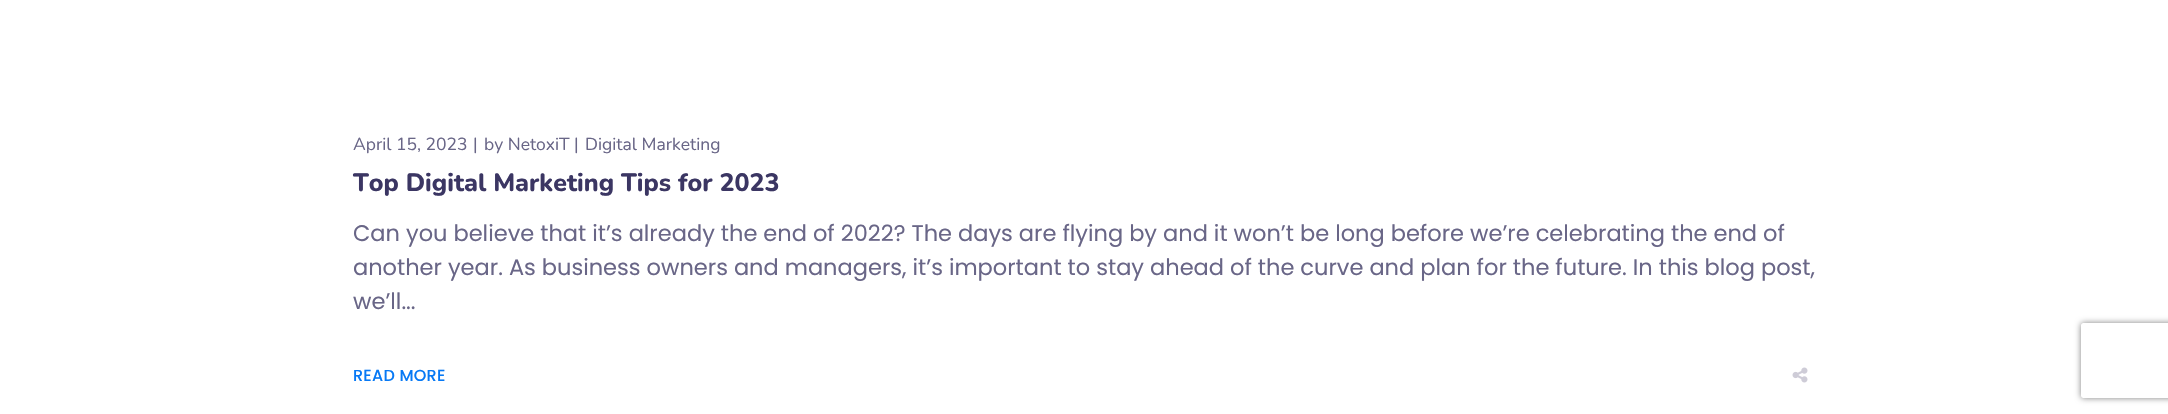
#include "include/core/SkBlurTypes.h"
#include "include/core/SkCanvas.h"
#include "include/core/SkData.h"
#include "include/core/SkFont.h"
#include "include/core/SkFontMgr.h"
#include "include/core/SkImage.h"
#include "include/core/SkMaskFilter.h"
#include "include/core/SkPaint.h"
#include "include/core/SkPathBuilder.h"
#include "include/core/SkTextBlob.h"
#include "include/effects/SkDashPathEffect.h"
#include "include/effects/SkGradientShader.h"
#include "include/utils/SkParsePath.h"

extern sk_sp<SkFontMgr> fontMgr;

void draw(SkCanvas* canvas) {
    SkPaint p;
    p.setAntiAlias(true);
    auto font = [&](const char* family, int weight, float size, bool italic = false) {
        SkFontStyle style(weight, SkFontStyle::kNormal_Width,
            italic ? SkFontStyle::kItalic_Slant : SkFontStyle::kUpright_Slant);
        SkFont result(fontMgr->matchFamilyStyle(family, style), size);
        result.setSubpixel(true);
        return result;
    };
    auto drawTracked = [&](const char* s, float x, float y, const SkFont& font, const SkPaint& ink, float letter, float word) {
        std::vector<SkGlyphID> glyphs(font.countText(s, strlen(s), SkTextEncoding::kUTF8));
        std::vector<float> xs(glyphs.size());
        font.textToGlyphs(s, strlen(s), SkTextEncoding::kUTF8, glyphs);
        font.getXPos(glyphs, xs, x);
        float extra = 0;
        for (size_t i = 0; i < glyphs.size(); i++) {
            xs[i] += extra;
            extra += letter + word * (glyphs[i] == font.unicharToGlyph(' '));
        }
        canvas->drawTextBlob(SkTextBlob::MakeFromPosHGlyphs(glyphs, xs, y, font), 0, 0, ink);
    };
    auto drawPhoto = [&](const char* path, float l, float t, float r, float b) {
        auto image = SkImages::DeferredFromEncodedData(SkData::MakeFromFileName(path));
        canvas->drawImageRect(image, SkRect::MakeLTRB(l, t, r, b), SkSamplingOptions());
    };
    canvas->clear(0xFFFFFFFF);
    auto font1 = font("Nunito", 400, 17.5f);
    p.setColor(0xFF696687);
    {
        const struct { const char* s; float x, y; } items[] = {
            {"April 15, 2023", 353, 150},
            {"|", 473, 150},
            {"by NetoxiT", 484, 150},
            {"|", 574, 150},
            {"Digital Marketing", 585, 150},
        };
        for (auto [s, x, y] : items) {
            canvas->drawString(s, x, y, font1, p);
        }
    }
    auto font2 = font("Nunito", 800, 25);
    p.setColor(0xFF3B3663);
    canvas->drawString("Top Digital Marketing Tips for 2023", 353, 191, font2, p);
    auto font3 = font("Poppins", 400, 22.5f);
    p.setColor(0xFF696687);
    {
        const struct { const char* s; float x, y; } items[] = {
            {"Can you believe that it’s already the end of 2022? The days are flying by and it won’t be long before we’re celebrating the end of", 353, 241},
            {"another year. As business owners and managers, it’s important to stay ahead of the curve and plan for the future. In this blog post,", 353, 275},
            {"we’ll...", 353, 309},
        };
        for (auto [s, x, y] : items) {
            canvas->drawString(s, x, y, font3, p);
        }
    }
    auto font4 = font("Poppins", 500, 16);
    p.setColor(0xFF0779F5);
    drawTracked("READ MORE", 353, 381, font4, p, 0.25f, 0);
    drawPhoto("media/1.png", 1792, 367, 1808, 383);
    canvas->save();
    canvas->clipPath(SkPathBuilder(SkPathFillType::kEvenOdd).moveTo(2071, 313).lineTo(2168, 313).lineTo(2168, 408).lineTo(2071, 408).close().moveTo(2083.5f, 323).lineTo(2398.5f, 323).cubicTo(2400, 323, 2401, 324, 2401, 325.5f).lineTo(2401, 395.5f).cubicTo(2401, 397, 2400, 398, 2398.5f, 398).lineTo(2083.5f, 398).cubicTo(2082, 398, 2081, 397, 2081, 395.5f).lineTo(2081, 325.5f).cubicTo(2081, 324, 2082, 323, 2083.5f, 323).close().detach(), true);
    p.setColor(0xFF808080);
    p.setMaskFilter(SkMaskFilter::MakeBlur(kNormal_SkBlurStyle, 3));
    canvas->drawRoundRect(SkRect::MakeLTRB(2081, 323, 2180, 398), 2.5f, 2.5f, p);
    p.setMaskFilter(nullptr);
    canvas->restore();
}
